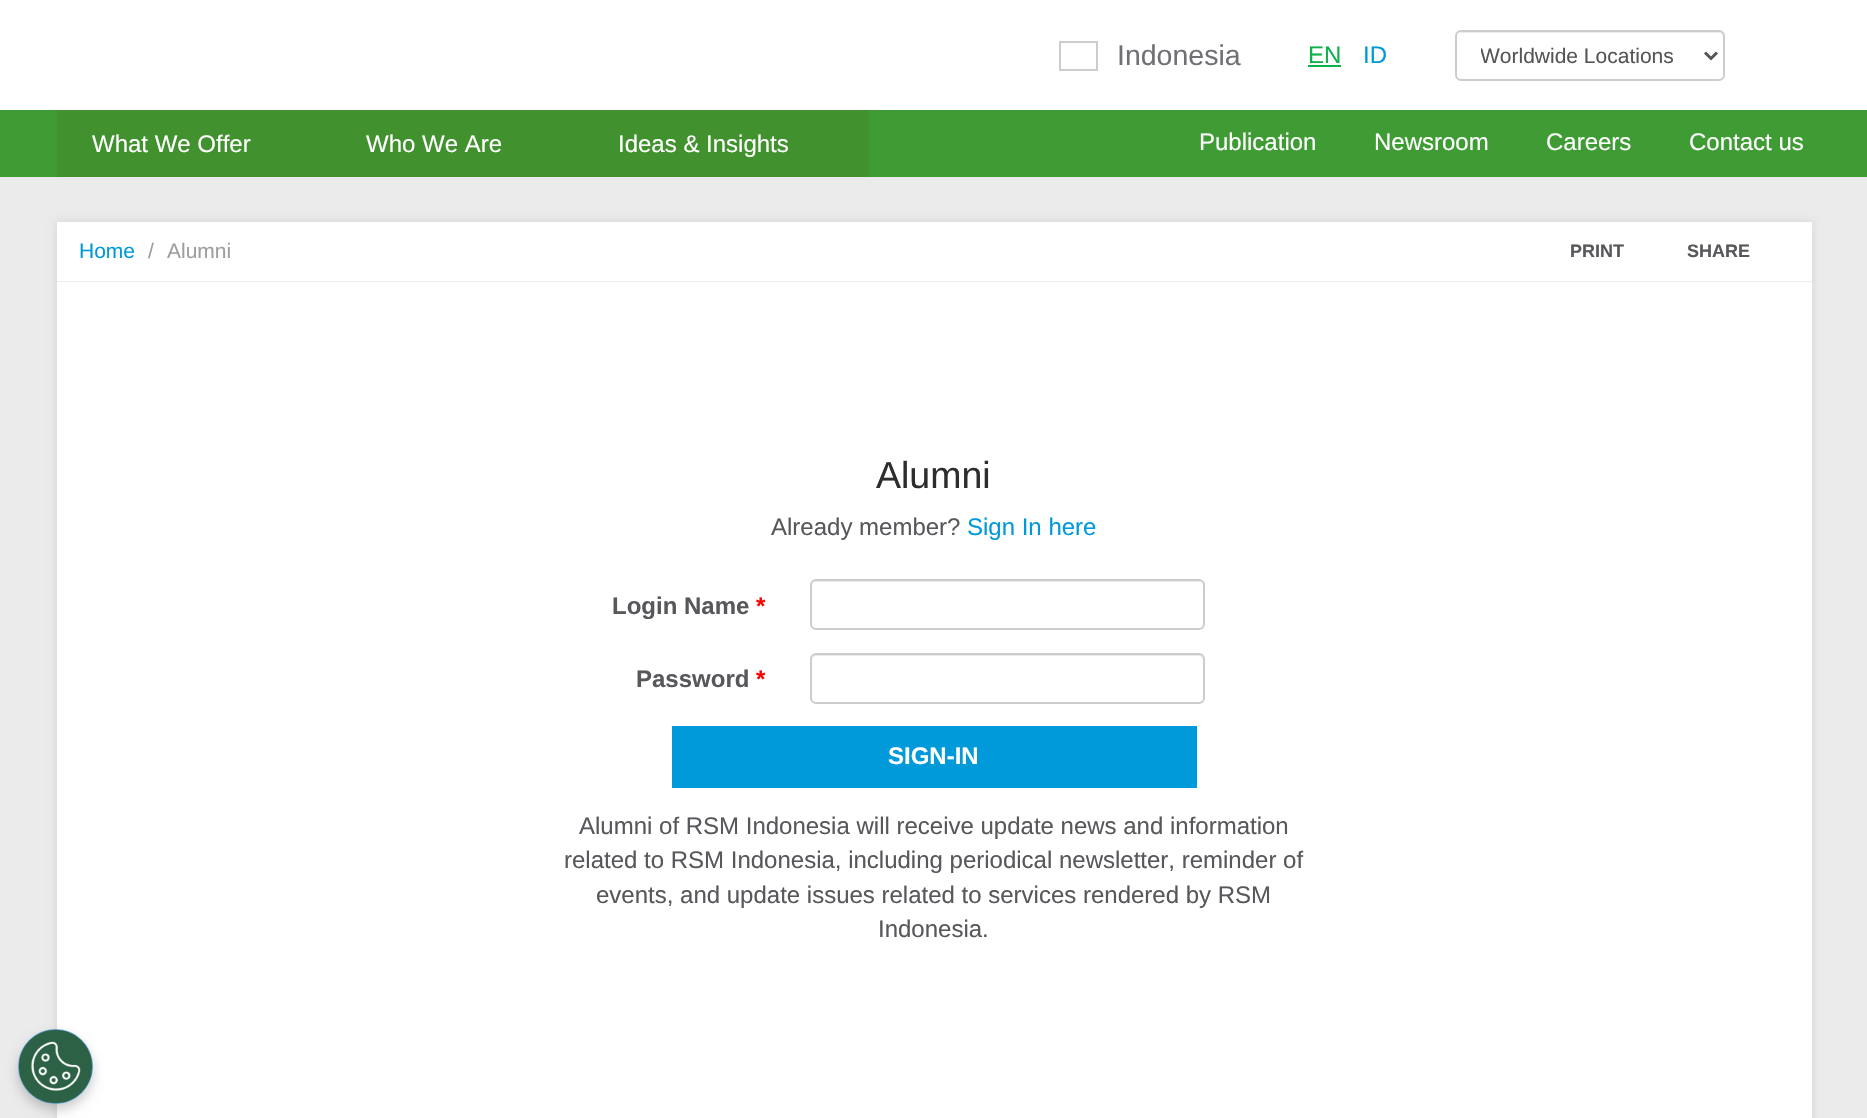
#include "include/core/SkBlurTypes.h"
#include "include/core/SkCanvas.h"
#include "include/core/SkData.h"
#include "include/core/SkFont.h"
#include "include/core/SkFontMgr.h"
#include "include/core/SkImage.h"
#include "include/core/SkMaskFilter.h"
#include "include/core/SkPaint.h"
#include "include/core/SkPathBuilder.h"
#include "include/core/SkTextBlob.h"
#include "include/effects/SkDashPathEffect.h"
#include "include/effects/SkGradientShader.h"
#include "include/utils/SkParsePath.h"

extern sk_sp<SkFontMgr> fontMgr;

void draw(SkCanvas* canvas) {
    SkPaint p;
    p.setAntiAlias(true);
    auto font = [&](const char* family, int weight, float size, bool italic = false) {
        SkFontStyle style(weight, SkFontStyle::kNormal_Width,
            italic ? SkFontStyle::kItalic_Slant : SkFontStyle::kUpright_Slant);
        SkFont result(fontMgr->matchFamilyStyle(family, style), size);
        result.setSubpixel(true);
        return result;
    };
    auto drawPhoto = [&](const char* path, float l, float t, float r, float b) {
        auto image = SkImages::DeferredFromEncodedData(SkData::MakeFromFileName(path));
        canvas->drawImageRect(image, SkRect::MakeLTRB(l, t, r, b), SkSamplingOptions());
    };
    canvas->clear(0xFFFFFFFF);
    p.setStyle(SkPaint::kStroke_Style);
    p.setStrokeWidth(2);
    p.setColor(0xFFCCCCCC);
    canvas->drawRect(SkRect::MakeLTRB(1060, 42, 1097, 70), p);
    auto font1 = font("Liberation Sans", 400, 28.5f);
    p.setStyle(SkPaint::kFill_Style);
    p.setColor(0xFF707175);
    canvas->drawString("Indonesia", 1117, 65, font1, p);
    auto font2 = font("Liberation Sans", 400, 24);
    p.setColor(0xFF0DB04A);
    canvas->drawString("EN", 1308, 63, font2, p);
    canvas->drawRect(SkRect::MakeLTRB(1308, 65, 1341, 67), p);
    p.setColor(0xFF009ADA);
    canvas->drawString("ID", 1363, 63, font2, p);
    p.setColor(0xFFECECEC);
    canvas->drawPath(SkPathBuilder().moveTo(1461, 33).lineTo(1719, 33).cubicTo(1721, 33, 1724, 35, 1724, 38).lineTo(1724, 37).cubicTo(1724, 34, 1722, 32, 1719, 32).lineTo(1462, 32).cubicTo(1460, 32, 1459, 33, 1458, 34).close().detach(), p);
    p.setStyle(SkPaint::kStroke_Style);
    p.setColor(0xFFCCCCCC);
    canvas->drawRoundRect(SkRect::MakeLTRB(1456, 31, 1724, 80), 5, 5, p);
    p.setStrokeWidth(3);
    p.setColor(0xFF555555);
    canvas->drawPath(SkPathBuilder().moveTo(1705, 52.5f).lineTo(1711, 58.5f).lineTo(1717, 52.5f).detach(), p);
    canvas->save();
    canvas->clipRect(SkRect::MakeLTRB(1481, 42, 1682, 69));
    auto font3 = font("Liberation Sans", 400, 21);
    p.setStyle(SkPaint::kFill_Style);
    canvas->drawString("Worldwide Locations", 1480, 63, font3, p);
    canvas->restore();
    p.setColor(0xFF3F9C35);
    canvas->drawRect(SkRect::MakeLTRB(0, 110, 1867, 177), p);
    p.setColor(0xFF42912F);
    canvas->drawRect(SkRect::MakeLTRB(57, 110, 869, 177), p);
    p.setColor(0xFFFFFFFF);
    {
        const struct { const char* s; float x, y; } items[] = {
            {"What We Offer", 92, 152},
            {"Who We Are", 366, 152},
            {"Ideas & Insights", 618, 152},
            {"Publication", 1199, 150},
            {"Newsroom", 1374, 150},
            {"Careers", 1546, 150},
            {"Contact us", 1689, 150},
        };
        for (auto [s, x, y] : items) {
            canvas->drawString(s, x, y, font2, p);
        }
    }
    p.setColor(0xFFEBEBEB);
    canvas->drawRect(SkRect::MakeLTRB(0, 177, 1867, 1118), p);
    p.setColor(0x1A000000);
    p.setMaskFilter(SkMaskFilter::MakeBlur(kNormal_SkBlurStyle, 4));
    canvas->drawRect(SkRect::MakeLTRB(57, 222, 1812, 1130), p);
    p.setMaskFilter(nullptr);
    p.setColor(0xFFFFFFFF);
    canvas->drawRect(SkRect::MakeLTRB(57, 222, 1812, 281), p);
    p.setColor(0xFFEDEDED);
    canvas->drawRect(SkRect::MakeLTRB(57, 281, 1812, 282), p);
    p.setColor(0xFF009ADA);
    canvas->drawString("Home", 79, 258, font3, p);
    p.setColor(0xFF9E9EA1);
    canvas->drawString("/", 148, 258, font3, p);
    canvas->drawString("Alumni", 167, 258, font3, p);
    auto font4 = font("Liberation Sans", 700, 18);
    p.setColor(0xFF57585B);
    canvas->drawString("PRINT", 1570, 257, font4, p);
    canvas->drawString("SHARE", 1687, 257, font4, p);
    p.setColor(0xFFFFFFFF);
    canvas->drawRect(SkRect::MakeLTRB(57, 282, 1812, 1118), p);
    auto font5 = font("Liberation Sans", 400, 37.5f);
    p.setColor(0xFF2D2D2D);
    canvas->drawString("Alumni", 876, 488, font5, p);
    p.setColor(0xFF57585B);
    canvas->drawString("Already member?", 771, 535, font2, p);
    p.setColor(0xFF009ADA);
    canvas->drawString("Sign In here", 967, 535, font2, p);
    auto font6 = font("Liberation Sans", 700, 24);
    p.setColor(0xFF57585B);
    canvas->drawString("Login Name", 612, 614, font6, p);
    p.setColor(0xFFFF0000);
    canvas->drawString("*", 756, 614, font6, p);
    p.setColor(0xFFECECEC);
    canvas->drawPath(SkPathBuilder().moveTo(816, 582).lineTo(1198, 582).cubicTo(1201, 582, 1203, 584, 1203, 586).cubicTo(1203, 583, 1201, 581, 1198, 581).lineTo(817, 581).cubicTo(814, 581, 812, 583, 812, 586).cubicTo(812, 584, 814, 582, 816, 582).close().detach(), p);
    p.setStyle(SkPaint::kStroke_Style);
    p.setStrokeWidth(2);
    p.setColor(0xFFCCCCCC);
    canvas->drawRoundRect(SkRect::MakeLTRB(811, 580, 1204, 629), 5, 5, p);
    p.setStyle(SkPaint::kFill_Style);
    p.setColor(0xFF57585B);
    canvas->drawString("Password", 636, 687, font6, p);
    p.setColor(0xFFFF0000);
    canvas->drawString("*", 756, 687, font6, p);
    p.setColor(0xFFECECEC);
    canvas->drawPath(SkPathBuilder().moveTo(816, 656).lineTo(1198, 656).cubicTo(1201, 656, 1203, 658, 1203, 660).lineTo(1203, 659).cubicTo(1203, 656, 1201, 654, 1198, 654).lineTo(817, 654).cubicTo(814, 654, 812, 656, 812, 659).lineTo(812, 660).cubicTo(812, 658, 814, 656, 816, 656).close().detach(), p);
    p.setStyle(SkPaint::kStroke_Style);
    p.setColor(0xFFCCCCCC);
    canvas->drawRoundRect(SkRect::MakeLTRB(811, 654, 1204, 703), 5, 5, p);
    p.setStyle(SkPaint::kFill_Style);
    p.setColor(0xFF009ADA);
    canvas->drawRect(SkRect::MakeLTRB(672, 726, 1197, 788), p);
    p.setColor(0xFFFFFFFF);
    canvas->drawString("SIGN-IN", 888, 764, font6, p);
    p.setColor(0xFF57585B);
    {
        const struct { const char* s; float x, y; } items[] = {
            {"Alumni of RSM Indonesia will receive update news and information", 579, 834},
            {"related to RSM Indonesia, including periodical newsletter, reminder of", 564, 868},
            {"events, and update issues related to services rendered by RSM", 596, 903},
            {"Indonesia.", 878, 937},
        };
        for (auto [s, x, y] : items) {
            canvas->drawString(s, x, y, font2, p);
        }
    }
    p.setColor(0x33000000);
    p.setMaskFilter(SkMaskFilter::MakeBlur(kNormal_SkBlurStyle, 6));
    canvas->drawRoundRect(SkRect::MakeLTRB(18, 1035, 93, 1110), 37.5f, 37.5f, p);
    p.setMaskFilter(nullptr);
    p.setColor(0xFF6AAAE4);
    canvas->drawCircle(55.5f, 1066.5f, 37.5f, p);
    drawPhoto("media/1.png", 18, 1029, 93, 1104);
}
